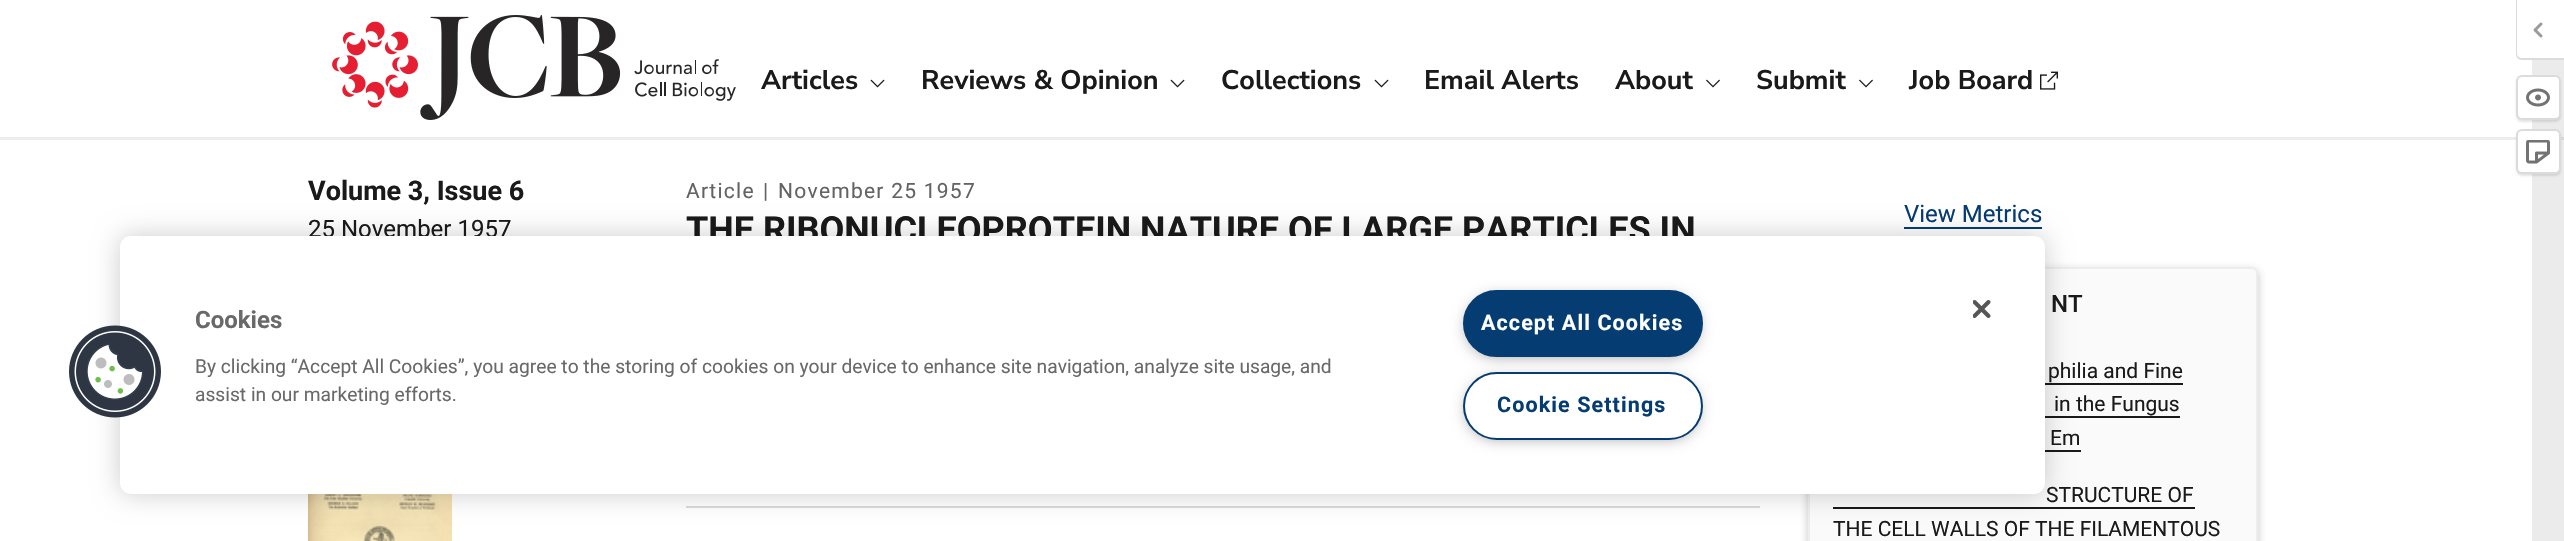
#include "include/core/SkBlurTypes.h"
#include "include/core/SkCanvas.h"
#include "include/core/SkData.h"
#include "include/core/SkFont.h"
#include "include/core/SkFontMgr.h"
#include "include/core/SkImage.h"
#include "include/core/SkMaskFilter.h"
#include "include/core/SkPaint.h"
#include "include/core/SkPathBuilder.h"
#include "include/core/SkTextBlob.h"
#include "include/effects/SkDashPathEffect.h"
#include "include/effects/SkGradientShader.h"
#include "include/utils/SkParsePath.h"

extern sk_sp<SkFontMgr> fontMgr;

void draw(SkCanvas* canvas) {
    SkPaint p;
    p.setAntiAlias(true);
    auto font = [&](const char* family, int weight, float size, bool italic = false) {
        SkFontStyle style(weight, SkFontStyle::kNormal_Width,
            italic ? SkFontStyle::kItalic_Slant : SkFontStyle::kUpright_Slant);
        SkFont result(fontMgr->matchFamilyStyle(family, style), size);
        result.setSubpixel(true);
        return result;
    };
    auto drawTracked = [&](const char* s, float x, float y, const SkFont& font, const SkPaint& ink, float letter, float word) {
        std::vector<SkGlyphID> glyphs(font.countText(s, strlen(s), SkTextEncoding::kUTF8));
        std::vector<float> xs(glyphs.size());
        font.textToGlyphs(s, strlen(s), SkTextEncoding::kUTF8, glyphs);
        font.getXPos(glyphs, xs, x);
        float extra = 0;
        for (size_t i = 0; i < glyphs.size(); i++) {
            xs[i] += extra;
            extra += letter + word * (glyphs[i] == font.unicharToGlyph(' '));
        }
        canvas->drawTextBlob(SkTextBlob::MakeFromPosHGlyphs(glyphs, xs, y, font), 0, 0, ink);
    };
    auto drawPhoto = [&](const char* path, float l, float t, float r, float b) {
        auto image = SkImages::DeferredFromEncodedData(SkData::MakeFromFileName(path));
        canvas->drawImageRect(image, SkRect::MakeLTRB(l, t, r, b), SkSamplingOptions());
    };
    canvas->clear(0xFFFFFFFF);
    {
        const struct { float l, t, r, b; SkColor color; } items[] = {
            {2532, 60, 2564, 541, 0xFFEBEBEB},
            {0, 137, 2516, 140, 0xFFEDEDED},
            {2561, 137, 2564, 140, 0xFFDADADA},
        };
        for (auto [l, t, r, b, color] : items) {
            p.setColor(color);
            canvas->drawRect(SkRect::MakeLTRB(l, t, r, b), p);
        }
    }
    drawPhoto("media/1.png", 332, 15, 736, 120);
    auto font1 = font("Nunito Sans", 700, 27);
    p.setColor(0xFF1A1A1A);
    canvas->drawString("Articles", 761, 89, font1, p);
    drawPhoto("media/2.png", 870, 79, 885, 88);
    canvas->drawString("Reviews & Opinion", 921, 89, font1, p);
    drawPhoto("media/2.png", 1170, 79, 1185, 88);
    canvas->drawString("Collections", 1221, 89, font1, p);
    drawPhoto("media/2.png", 1374, 79, 1389, 88);
    canvas->drawString("Email Alerts", 1424, 89, font1, p);
    canvas->drawString("About", 1615, 89, font1, p);
    drawPhoto("media/3.png", 1706, 79, 1720, 88);
    canvas->drawString("Submit", 1756, 89, font1, p);
    drawPhoto("media/3.png", 1859, 79, 1873, 88);
    canvas->drawString("Job Board", 1909, 89, font1, p);
    drawPhoto("media/4.png", 2040, 71, 2058, 90);
    p.setColor(0xFFDBDBDB);
    canvas->drawPath(SkPathBuilder(SkPathFillType::kEvenOdd).moveTo(2516, 0).lineTo(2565, 0).lineTo(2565, 60).lineTo(2522, 60).cubicTo(2518, 60, 2516, 57, 2516, 54).close().moveTo(2517, 0).lineTo(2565, 0).lineTo(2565, 58).lineTo(2522, 58).cubicTo(2519, 58, 2517, 56, 2517, 54).close().detach(), p);
    drawPhoto("media/5.png", 2533, 22, 2543, 38);
    p.setColor(0x1A000000);
    p.setMaskFilter(SkMaskFilter::MakeBlur(kNormal_SkBlurStyle, 1));
    canvas->drawRoundRect(SkRect::MakeLTRB(2516, 77, 2561, 122), 6, 6, p);
    p.setMaskFilter(nullptr);
    p.setColor(0xFFFFFFFF);
    canvas->drawRoundRect(SkRect::MakeLTRB(2517, 76, 2560, 119), 5, 5, p);
    p.setStyle(SkPaint::kStroke_Style);
    p.setStrokeWidth(2);
    p.setColor(0xFFDBDBDB);
    canvas->drawRoundRect(SkRect::MakeLTRB(2517, 76, 2560, 119), 5, 5, p);
    drawPhoto("media/6.png", 2526, 88, 2550, 107);
    p.setStyle(SkPaint::kFill_Style);
    p.setColor(0x1A000000);
    p.setMaskFilter(SkMaskFilter::MakeBlur(kNormal_SkBlurStyle, 1));
    canvas->drawRoundRect(SkRect::MakeLTRB(2516, 131, 2561, 176), 6, 6, p);
    p.setMaskFilter(nullptr);
    p.setColor(0xFFFFFFFF);
    canvas->drawRoundRect(SkRect::MakeLTRB(2517, 130, 2560, 173), 5, 5, p);
    p.setStyle(SkPaint::kStroke_Style);
    p.setColor(0xFFDBDBDB);
    canvas->drawRoundRect(SkRect::MakeLTRB(2517, 130, 2560, 173), 5, 5, p);
    drawPhoto("media/7.png", 2526, 140, 2550, 164);
    auto font2 = font("Roboto", 700, 27);
    p.setStyle(SkPaint::kFill_Style);
    p.setColor(0xFF1A1A1A);
    canvas->drawString("Volume 3, Issue 6", 308, 200, font2, p);
    auto font3 = font("Roboto", 400, 24);
    canvas->drawString("25 November 1957", 308, 237, font3, p);
    drawPhoto("media/8.png", 308, 494, 452, 541);
    auto font4 = font("Roboto", 400, 21);
    p.setColor(0xFF646262);
    {
        const struct { const char* s; float x, y; } items[] = {
            {"Article", 686, 198},
            {"|", 763, 198},
            {"November 25 1957", 778, 198},
        };
        for (auto [s, x, y] : items) {
            drawTracked(s, x, y, font4, p, 1.25f, 0);
        }
    }
    auto font5 = font("Roboto", 700, 36);
    p.setColor(0xFF1A1A1A);
    canvas->drawString("THE RIBONUCLEOPROTEIN NATURE OF LARGE PARTICLES IN", 686, 242, font5, p);
    p.setColor(0xFFDBDBDB);
    canvas->drawRect(SkRect::MakeLTRB(686, 506, 1760, 508), p);
    p.setColor(0xFF053C72);
    canvas->drawString("View Metrics", 1904, 222, font3, p);
    canvas->drawRect(SkRect::MakeLTRB(1904, 227, 2042, 229), p);
    p.setColor(0x4D433838);
    p.setMaskFilter(SkMaskFilter::MakeBlur(kNormal_SkBlurStyle, 4.5f));
    canvas->drawRoundRect(SkRect::MakeLTRB(1808, 270, 2258, 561), 6, 6, p);
    p.setMaskFilter(nullptr);
    p.setColor(0xFFFAFAFA);
    canvas->drawRoundRect(SkRect::MakeLTRB(1809, 268, 2257, 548), 5, 5, p);
    p.setStyle(SkPaint::kStroke_Style);
    p.setColor(0xFFEDEDED);
    canvas->drawRoundRect(SkRect::MakeLTRB(1809, 268, 2257, 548), 5, 5, p);
    auto font6 = font("Roboto", 500, 24);
    p.setStyle(SkPaint::kFill_Style);
    p.setColor(0xFF1A1A1A);
    canvas->drawString("NT", 2051, 312, font6, p);
    canvas->drawString("philia and Fine", 2048, 378, font4, p);
    canvas->drawRect(SkRect::MakeLTRB(2045, 383, 2183, 385), p);
    canvas->drawString("in the Fungus", 2054, 411, font4, p);
    canvas->drawRect(SkRect::MakeLTRB(2045, 416, 2180, 418), p);
    canvas->drawString("Em", 2050, 445, font4, p);
    canvas->drawRect(SkRect::MakeLTRB(2045, 450, 2081, 452), p);
    canvas->drawString("STRUCTURE OF", 2046, 502, font4, p);
    canvas->drawRect(SkRect::MakeLTRB(1833, 507, 2195, 509), p);
    canvas->drawString("THE CELL WALLS OF THE FILAMENTOUS", 1833, 536, font4, p);
    p.setColor(0x33000000);
    p.setMaskFilter(SkMaskFilter::MakeBlur(kNormal_SkBlurStyle, 13.5f));
    canvas->drawRoundRect(SkRect::MakeLTRB(120, 236, 2045, 494), 11, 11, p);
    p.setMaskFilter(nullptr);
    p.setColor(0xFFFFFFFF);
    canvas->drawRoundRect(SkRect::MakeLTRB(120, 236, 2045, 494), 11, 11, p);
    drawPhoto("media/9.png", 69, 325, 161, 418);
    auto font7 = font("Roboto", 700, 24);
    p.setColor(0xFF696969);
    canvas->drawString("Cookies", 195, 328, font7, p);
    auto font8 = font("Roboto", 400, 19.2f);
    canvas->drawString("By clicking “Accept All Cookies”, you agree to the storing of cookies on your device to enhance site navigation, analyze site usage, and", 195, 373, font8, p);
    canvas->drawString("assist in our marketing efforts.", 195, 401, font8, p);
    p.setColor(0xFF999999);
    p.setMaskFilter(SkMaskFilter::MakeBlur(kNormal_SkBlurStyle, 7.5f));
    canvas->drawRoundRect(SkRect::MakeLTRB(1467, 297, 1698, 356), 29.5f, 29.5f, p);
    p.setMaskFilter(nullptr);
    p.setColor(0xFF053C72);
    canvas->drawRoundRect(SkRect::MakeLTRB(1464, 291, 1702, 356), 32.5f, 32.5f, p);
    p.setStyle(SkPaint::kStroke_Style);
    canvas->drawRoundRect(SkRect::MakeLTRB(1464, 291, 1702, 356), 32.5f, 32.5f, p);
    auto font9 = font("Roboto", 700, 21.5f);
    p.setStyle(SkPaint::kFill_Style);
    p.setColor(0xFFFFFFFF);
    drawTracked("Accept All Cookies", 1481, 330, font9, p, 1.1f, 0);
    p.setColor(0xFF999999);
    p.setMaskFilter(SkMaskFilter::MakeBlur(kNormal_SkBlurStyle, 7.5f));
    canvas->drawRoundRect(SkRect::MakeLTRB(1467, 380, 1698, 438), 29, 29, p);
    p.setMaskFilter(nullptr);
    p.setColor(0xFFFFFFFF);
    canvas->drawRoundRect(SkRect::MakeLTRB(1464, 373, 1702, 439), 33, 33, p);
    p.setStyle(SkPaint::kStroke_Style);
    p.setColor(0xFF053C72);
    canvas->drawRoundRect(SkRect::MakeLTRB(1464, 373, 1702, 439), 33, 33, p);
    p.setStyle(SkPaint::kFill_Style);
    drawTracked("Cookie Settings", 1497, 412, font9, p, 1.1f, 0);
    drawPhoto("media/10.png", 1973, 300, 1991, 318);
}
